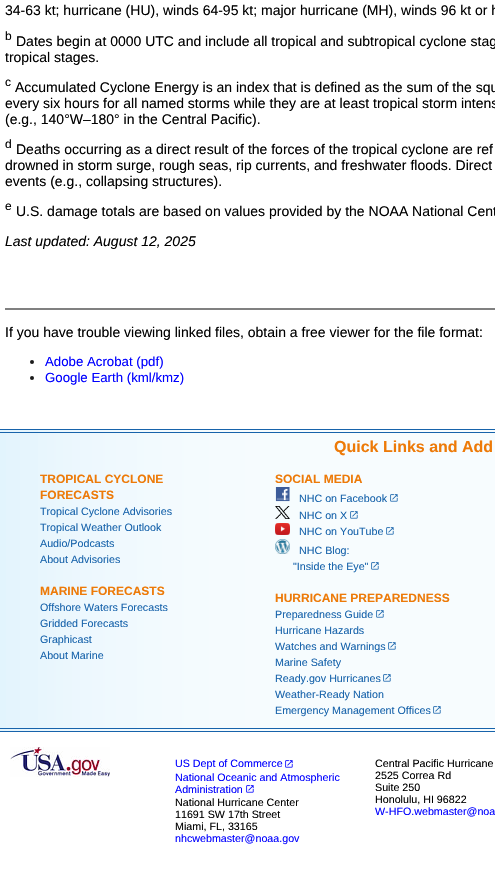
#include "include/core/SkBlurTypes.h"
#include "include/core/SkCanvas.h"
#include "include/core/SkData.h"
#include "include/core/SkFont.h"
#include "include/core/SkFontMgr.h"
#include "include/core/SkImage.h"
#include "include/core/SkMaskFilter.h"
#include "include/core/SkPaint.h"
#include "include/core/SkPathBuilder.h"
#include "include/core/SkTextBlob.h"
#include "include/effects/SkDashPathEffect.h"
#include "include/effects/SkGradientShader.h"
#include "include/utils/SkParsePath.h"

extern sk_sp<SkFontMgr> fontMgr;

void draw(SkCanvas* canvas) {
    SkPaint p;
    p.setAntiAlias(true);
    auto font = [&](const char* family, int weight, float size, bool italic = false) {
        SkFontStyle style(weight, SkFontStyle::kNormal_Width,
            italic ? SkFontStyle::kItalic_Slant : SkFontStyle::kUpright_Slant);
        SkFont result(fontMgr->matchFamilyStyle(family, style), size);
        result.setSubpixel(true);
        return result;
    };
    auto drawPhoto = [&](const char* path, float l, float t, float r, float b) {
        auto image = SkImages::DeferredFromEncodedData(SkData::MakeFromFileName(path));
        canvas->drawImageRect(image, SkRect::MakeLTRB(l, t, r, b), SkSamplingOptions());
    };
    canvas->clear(0xFFFFFFFF);
    auto font1 = font("Liberation Sans", 400, 14);
    p.setColor(0xFF000000);
    canvas->drawString("34-63 kt; hurricane (HU), winds 64-95 kt; major hurricane (MH), winds 96 kt or h", 5, 15, font1, p);
    auto font2 = font("Liberation Sans", 400, 12);
    canvas->drawString("b", 5, 40, font2, p);
    canvas->drawString("Dates begin at 0000 UTC and include all tropical and subtropical cyclone stag", 16, 46, font1, p);
    canvas->drawString("tropical stages.", 5, 62, font1, p);
    canvas->drawString("c", 5, 86, font2, p);
    {
        const struct { const char* s; float x, y; } items[] = {
            {"Accumulated Cyclone Energy is an index that is defined as the sum of the squ", 15, 92},
            {"every six hours for all named storms while they are at least tropical storm intens", 5, 108},
            {"(e.g., 140°W–180° in the Central Pacific).", 5, 124},
        };
        for (auto [s, x, y] : items) {
            canvas->drawString(s, x, y, font1, p);
        }
    }
    canvas->drawString("d", 5, 148, font2, p);
    {
        const struct { const char* s; float x, y; } items[] = {
            {"Deaths occurring as a direct result of the forces of the tropical cyclone are ref", 16, 154},
            {"drowned in storm surge, rough seas, rip currents, and freshwater floods. Direct", 5, 170},
            {"events (e.g., collapsing structures).", 5, 186},
        };
        for (auto [s, x, y] : items) {
            canvas->drawString(s, x, y, font1, p);
        }
    }
    canvas->drawString("e", 5, 210, font2, p);
    canvas->drawString("U.S. damage totals are based on values provided by the NOAA National Cent", 16, 216, font1, p);
    auto font3 = font("Liberation Sans", 400, 14, true);
    canvas->drawString("Last updated: August 12, 2025", 5, 246, font3, p);
    p.setColor(0xFF808080);
    canvas->drawRect(SkRect::MakeLTRB(5, 308, 495, 310), p);
    p.setColor(0xFF000000);
    canvas->drawString("If you have trouble viewing linked files, obtain a free viewer for the file format:", 5, 337, font1, p);
    p.setColor(0xFF1B1B1B);
    canvas->drawCircle(32, 362, 2, p);
    auto font4 = font("Liberation Sans", 400, 13.25f);
    p.setColor(0xFF0000FF);
    canvas->drawString("Adobe Acrobat (pdf)", 45, 366, font4, p);
    p.setColor(0xFF1B1B1B);
    canvas->drawCircle(32, 378, 2, p);
    p.setColor(0xFF0000FF);
    canvas->drawString("Google Earth (kml/kmz)", 45, 382, font4, p);
    drawPhoto("media/1.png", 0, 430, 495, 731);
    {
        const struct { float l, t, r, b; SkColor color; } items[] = {
            {0, 429, 495, 430, 0xFF1763AB},
            {0, 432, 495, 433, 0xFF1763AB},
            {0, 728, 495, 729, 0xFF1763AB},
            {0, 731, 495, 732, 0xFF1763AB},
        };
        for (auto [l, t, r, b, color] : items) {
            p.setColor(color);
            canvas->drawRect(SkRect::MakeLTRB(l, t, r, b), p);
        }
    }
    auto font5 = font("Liberation Sans", 700, 16);
    p.setColor(0xFFED7A08);
    canvas->drawString("Quick Links and Add", 334, 452, font5, p);
    auto font6 = font("Liberation Sans", 700, 12);
    canvas->drawString("TROPICAL CYCLONE", 40, 483, font6, p);
    canvas->drawString("FORECASTS", 40, 499, font6, p);
    auto font7 = font("Liberation Sans", 400, 10.7f);
    p.setColor(0xFF1763AB);
    {
        const struct { const char* s; float x, y; } items[] = {
            {"Tropical Cyclone Advisories", 40, 515},
            {"Tropical Weather Outlook", 40, 531},
            {"Audio/Podcasts", 40, 547},
            {"About Advisories", 40, 563},
        };
        for (auto [s, x, y] : items) {
            canvas->drawString(s, x, y, font7, p);
        }
    }
    p.setColor(0xFFED7A08);
    canvas->drawString("MARINE FORECASTS", 40, 595, font6, p);
    p.setColor(0xFF1763AB);
    {
        const struct { const char* s; float x, y; } items[] = {
            {"Offshore Waters Forecasts", 40, 611},
            {"Gridded Forecasts", 40, 627},
            {"Graphicast", 40, 643},
            {"About Marine", 40, 659},
        };
        for (auto [s, x, y] : items) {
            canvas->drawString(s, x, y, font7, p);
        }
    }
    p.setColor(0xFFED7A08);
    canvas->drawString("SOCIAL MEDIA", 275, 483, font6, p);
    drawPhoto("media/2.png", 275, 487, 290, 502);
    p.setColor(0xFF1763AB);
    canvas->drawString("NHC on Facebook", 299, 502, font7, p);
    drawPhoto("media/3.png", 390, 494, 398, 502);
    drawPhoto("media/4.png", 275, 506, 290, 519);
    canvas->drawString("NHC on X", 299, 519, font7, p);
    drawPhoto("media/3.png", 350, 511, 358, 519);
    drawPhoto("media/5.png", 275, 523, 290, 535);
    canvas->drawString("NHC on YouTube", 299, 535, font7, p);
    drawPhoto("media/3.png", 386, 527, 394, 535);
    drawPhoto("media/6.png", 275, 539, 290, 554);
    canvas->drawString("NHC Blog:", 299, 554, font7, p);
    canvas->drawString("\"Inside the Eye\"", 293, 570, font7, p);
    drawPhoto("media/3.png", 371, 562, 379, 570);
    p.setColor(0xFFED7A08);
    canvas->drawString("HURRICANE PREPAREDNESS", 275, 602, font6, p);
    p.setColor(0xFF1763AB);
    canvas->drawString("Preparedness Guide", 275, 618, font7, p);
    drawPhoto("media/3.png", 376, 610, 384, 618);
    canvas->drawString("Hurricane Hazards", 275, 634, font7, p);
    canvas->drawString("Watches and Warnings", 275, 650, font7, p);
    drawPhoto("media/3.png", 388, 642, 396, 650);
    canvas->drawString("Marine Safety", 275, 666, font7, p);
    canvas->drawString("Ready.gov Hurricanes", 275, 682, font7, p);
    drawPhoto("media/3.png", 383, 674, 391, 682);
    canvas->drawString("Weather-Ready Nation", 275, 698, font7, p);
    canvas->drawString("Emergency Management Offices", 275, 714, font7, p);
    drawPhoto("media/3.png", 433, 706, 441, 714);
    drawPhoto("media/7.png", 10, 747, 110, 777);
    p.setColor(0xFF0000FF);
    canvas->drawString("US Dept of Commerce", 175, 767, font7, p);
    drawPhoto("media/8.png", 285, 760, 293, 768);
    canvas->drawString("National Oceanic and Atmospheric", 175, 781, font7, p);
    canvas->drawString("Administration", 175, 793, font7, p);
    drawPhoto("media/8.png", 246, 785, 254, 793);
    p.setColor(0xFF000000);
    {
        const struct { const char* s; float x, y; } items[] = {
            {"National Hurricane Center", 175, 806},
            {"11691 SW 17th Street", 175, 818},
            {"Miami, FL, 33165", 175, 830},
        };
        for (auto [s, x, y] : items) {
            canvas->drawString(s, x, y, font7, p);
        }
    }
    p.setColor(0xFF0000FF);
    canvas->drawString("nhcwebmaster@noaa.gov", 175, 842, font7, p);
    p.setColor(0xFF000000);
    {
        const struct { const char* s; float x, y; } items[] = {
            {"Central Pacific Hurricane", 375, 767},
            {"2525 Correa Rd", 375, 779},
            {"Suite 250", 375, 791},
            {"Honolulu, HI 96822", 375, 803},
        };
        for (auto [s, x, y] : items) {
            canvas->drawString(s, x, y, font7, p);
        }
    }
    p.setColor(0xFF0000FF);
    canvas->drawString("W-HFO.webmaster@noa", 375, 815, font7, p);
}
